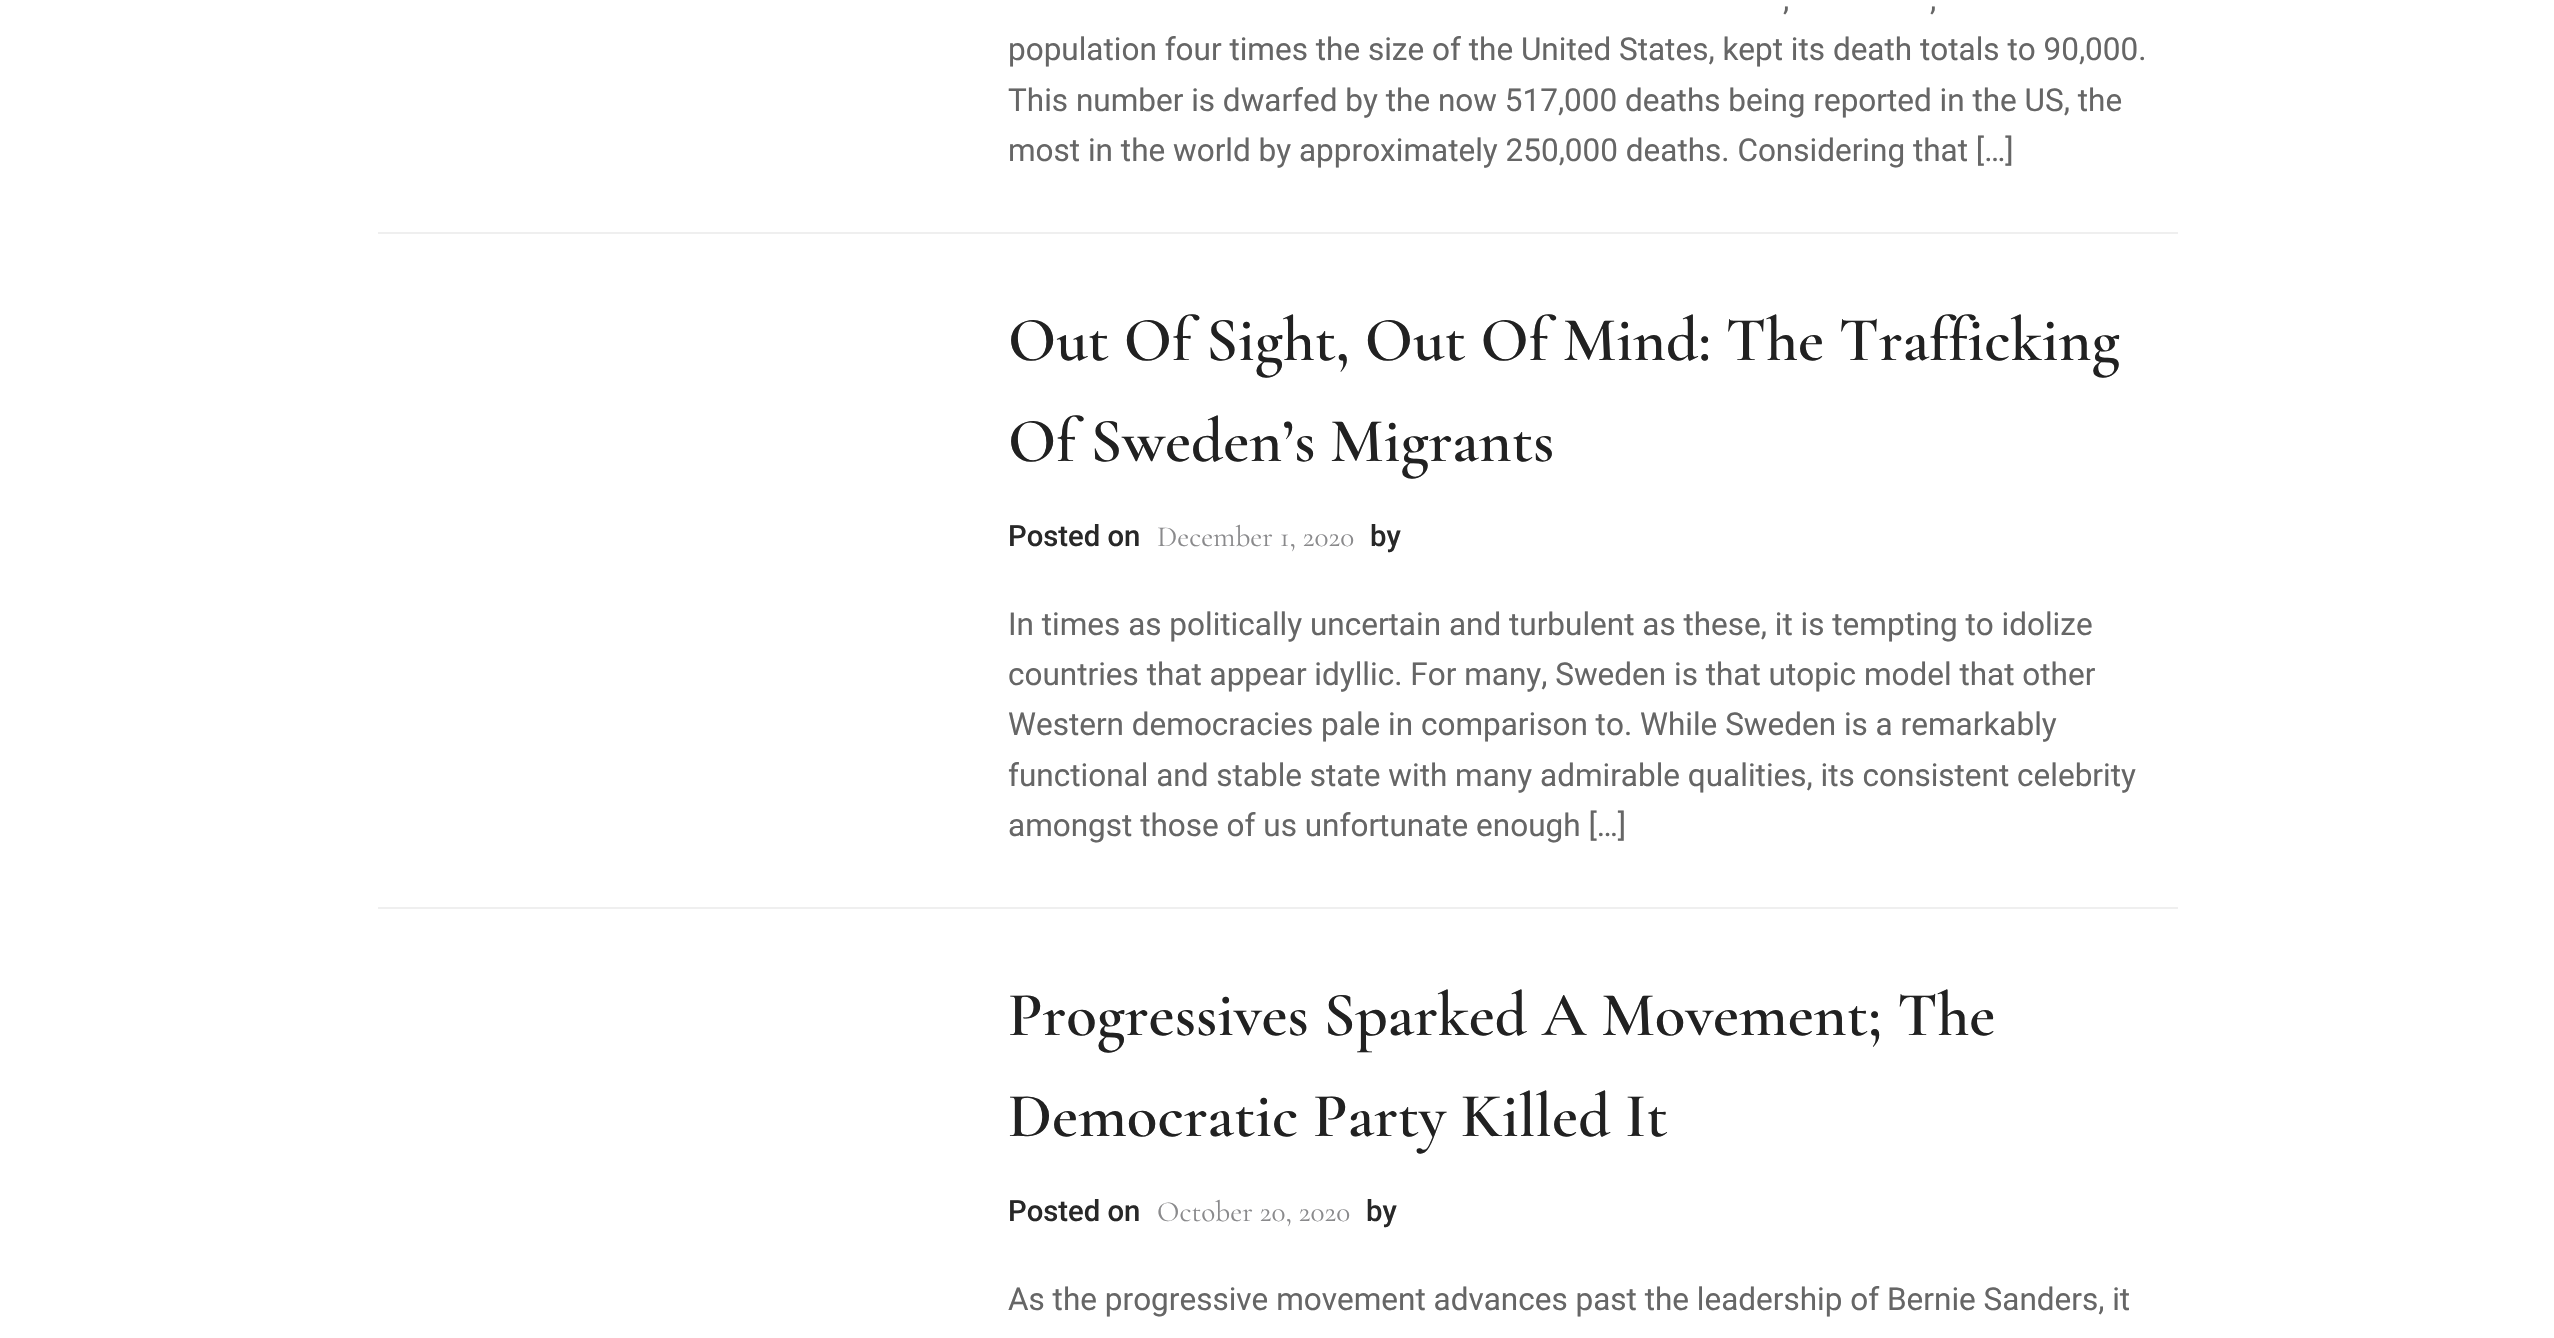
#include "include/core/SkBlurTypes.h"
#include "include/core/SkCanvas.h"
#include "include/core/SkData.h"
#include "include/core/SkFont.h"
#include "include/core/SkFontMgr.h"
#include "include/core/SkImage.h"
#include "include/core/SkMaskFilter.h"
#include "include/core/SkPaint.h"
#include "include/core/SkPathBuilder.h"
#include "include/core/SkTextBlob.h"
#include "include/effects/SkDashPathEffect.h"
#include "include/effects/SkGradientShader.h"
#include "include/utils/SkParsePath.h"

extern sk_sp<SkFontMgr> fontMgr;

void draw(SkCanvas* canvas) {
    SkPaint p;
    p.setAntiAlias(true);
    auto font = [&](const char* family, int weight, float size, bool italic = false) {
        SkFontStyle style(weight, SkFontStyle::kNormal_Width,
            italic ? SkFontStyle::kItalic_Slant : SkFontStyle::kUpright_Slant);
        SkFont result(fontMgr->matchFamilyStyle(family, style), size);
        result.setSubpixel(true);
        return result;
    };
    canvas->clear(0xFFFFFFFF);
    p.setColor(0xFFEFEFEF);
    canvas->drawRect(SkRect::MakeLTRB(378, 232, 2178, 234), p);
    auto font1 = font("Roboto", 400, 31.5f);
    p.setColor(0xFF666666);
    {
        const struct { const char* s; float x, y; } items[] = {
            {",", 1783, 10},
            {",", 1930, 10},
            {"population four times the size of the United States, kept its death totals to 90,000.", 1008, 60},
            {"This number is dwarfed by the now 517,000 deaths being reported in the US, the", 1008, 111},
            {"most in the world by approximately 250,000 deaths. Considering that […]", 1008, 161},
        };
        for (auto [s, x, y] : items) {
            canvas->drawString(s, x, y, font1, p);
        }
    }
    p.setColor(0xFFEFEFEF);
    canvas->drawRect(SkRect::MakeLTRB(378, 907, 2178, 909), p);
    auto font2 = font("Cormorant Garamond", 600, 63);
    p.setColor(0xFF212121);
    canvas->drawString("Out Of Sight, Out Of Mind: The Trafficking", 1008, 360, font2, p);
    canvas->drawString("Of Sweden’s Migrants", 1008, 461, font2, p);
    auto font3 = font("Roboto", 500, 29.25f);
    p.setColor(0xFF282828);
    canvas->drawString("Posted on", 1008, 546, font3, p);
    auto font4 = font("Cormorant Garamond", 400, 29.25f);
    p.setColor(0xFF8A8A8C);
    canvas->drawString("December 1, 2020", 1157, 546, font4, p);
    p.setColor(0xFF282828);
    canvas->drawString("by", 1370, 546, font3, p);
    p.setColor(0xFF666666);
    {
        const struct { const char* s; float x, y; } items[] = {
            {"In times as politically uncertain and turbulent as these, it is tempting to idolize", 1008, 635},
            {"countries that appear idyllic. For many, Sweden is that utopic model that other", 1008, 685},
            {"Western democracies pale in comparison to. While Sweden is a remarkably", 1008, 735},
            {"functional and stable state with many admirable qualities, its consistent celebrity", 1008, 786},
            {"amongst those of us unfortunate enough […]", 1008, 836},
        };
        for (auto [s, x, y] : items) {
            canvas->drawString(s, x, y, font1, p);
        }
    }
    p.setColor(0xFF212121);
    canvas->drawString("Progressives Sparked A Movement; The", 1008, 1035, font2, p);
    canvas->drawString("Democratic Party Killed It", 1008, 1136, font2, p);
    p.setColor(0xFF282828);
    canvas->drawString("Posted on", 1008, 1221, font3, p);
    p.setColor(0xFF8A8A8C);
    canvas->drawString("October 20, 2020", 1157, 1221, font4, p);
    p.setColor(0xFF282828);
    canvas->drawString("by", 1366, 1221, font3, p);
    p.setColor(0xFF666666);
    canvas->drawString("As the progressive movement advances past the leadership of Bernie Sanders, it", 1008, 1310, font1, p);
}
